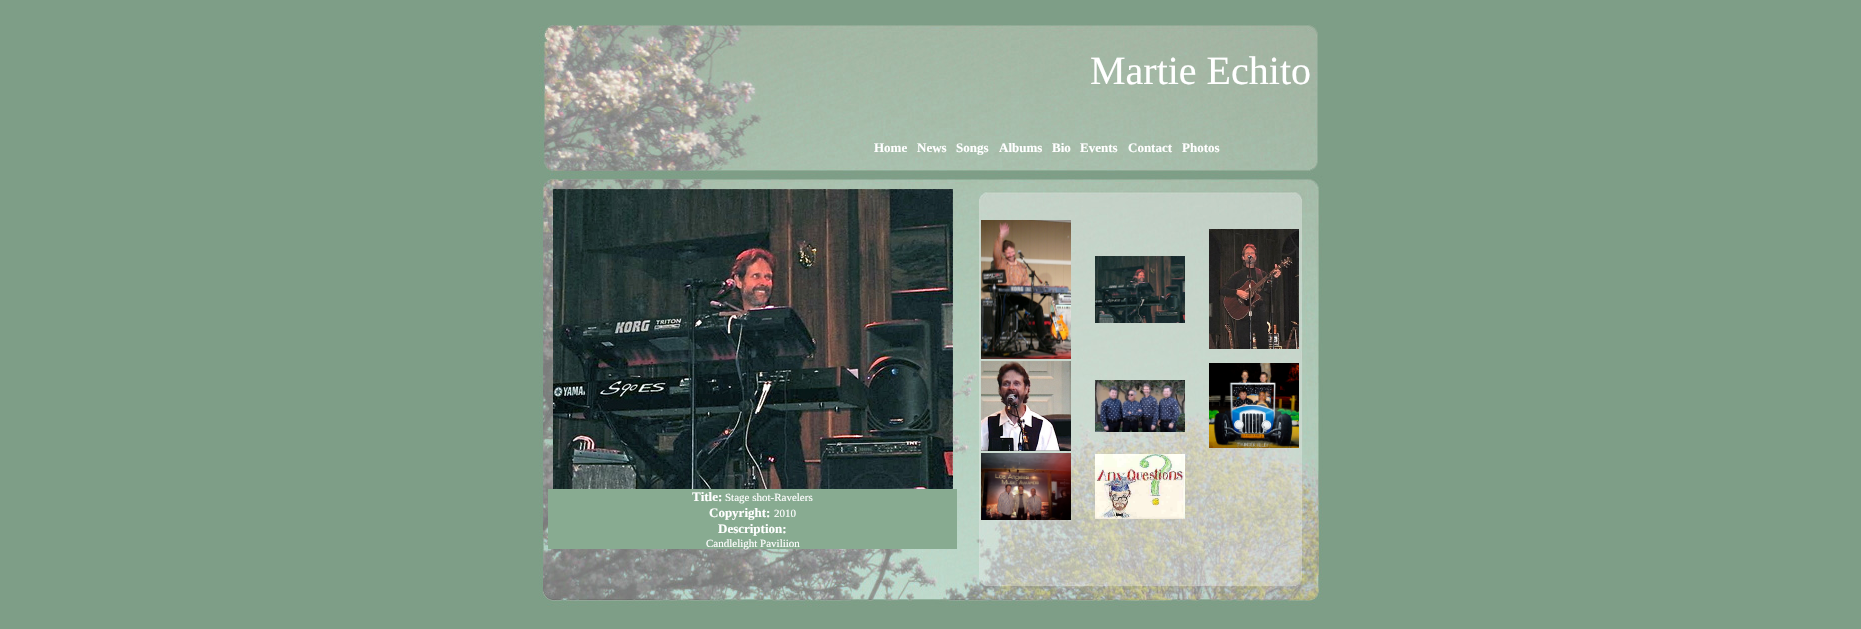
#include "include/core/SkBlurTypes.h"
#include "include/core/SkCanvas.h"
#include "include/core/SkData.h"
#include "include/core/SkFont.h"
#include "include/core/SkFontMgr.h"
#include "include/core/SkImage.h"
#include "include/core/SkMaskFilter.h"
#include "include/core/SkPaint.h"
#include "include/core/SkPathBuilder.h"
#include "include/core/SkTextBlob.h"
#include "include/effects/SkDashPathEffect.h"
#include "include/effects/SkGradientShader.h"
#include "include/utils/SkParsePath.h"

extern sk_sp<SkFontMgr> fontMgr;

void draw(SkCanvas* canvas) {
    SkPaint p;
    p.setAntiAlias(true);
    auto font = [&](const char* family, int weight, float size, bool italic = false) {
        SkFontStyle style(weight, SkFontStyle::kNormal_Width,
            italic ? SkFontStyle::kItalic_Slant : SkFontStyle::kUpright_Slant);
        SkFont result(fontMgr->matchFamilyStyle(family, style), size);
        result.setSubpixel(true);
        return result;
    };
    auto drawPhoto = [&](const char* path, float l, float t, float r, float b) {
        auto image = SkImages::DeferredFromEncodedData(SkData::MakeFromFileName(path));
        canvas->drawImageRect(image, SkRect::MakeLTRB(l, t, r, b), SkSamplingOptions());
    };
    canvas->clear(0xFF7E9E87);
    drawPhoto("media/1.png", 539, 24, 1318, 175);
    auto font1 = font("Liberation Serif", 400, 40);
    p.setColor(0xFFFFFFFF);
    canvas->drawString("Martie Echito", 1090, 84, font1, p);
    auto font2 = font("Liberation Serif", 700, 13);
    {
        const struct { const char* s; float x, y; } items[] = {
            {"Home", 874, 152},
            {"News", 917, 152},
            {"Songs", 956, 152},
            {"Albums", 999, 152},
            {"Bio", 1052, 152},
            {"Events", 1080, 152},
            {"Contact", 1128, 152},
            {"Photos", 1182, 152},
        };
        for (auto [s, x, y] : items) {
            canvas->drawString(s, x, y, font2, p);
        }
    }
    drawPhoto("media/2.png", 539, 175, 1323, 607);
    drawPhoto("media/3.png", 553, 189, 953, 489);
    p.setColor(0xFF88AB91);
    canvas->drawRect(SkRect::MakeLTRB(548, 489, 957, 549), p);
    p.setColor(0xFFFFFFFF);
    canvas->drawString("Title:", 692, 501, font2, p);
    auto font3 = font("Liberation Serif", 400, 11);
    canvas->drawString("Stage shot-Ravelers", 725, 501, font3, p);
    canvas->drawString("Copyright:", 709, 517, font2, p);
    canvas->drawString("2010", 774, 517, font3, p);
    canvas->drawString("Description:", 718, 533, font2, p);
    canvas->drawString("Candlelight Paviliion", 706, 547, font3, p);
    drawPhoto("media/4.png", 981, 220, 1071, 359);
    drawPhoto("media/5.png", 1095, 256, 1185, 323);
    drawPhoto("media/6.png", 1209, 229, 1299, 349);
    drawPhoto("media/7.png", 981, 361, 1071, 451);
    drawPhoto("media/8.png", 1095, 380, 1185, 432);
    drawPhoto("media/9.png", 1209, 363, 1299, 448);
    drawPhoto("media/10.png", 981, 453, 1071, 520);
    drawPhoto("media/11.png", 1095, 454, 1185, 519);
}
